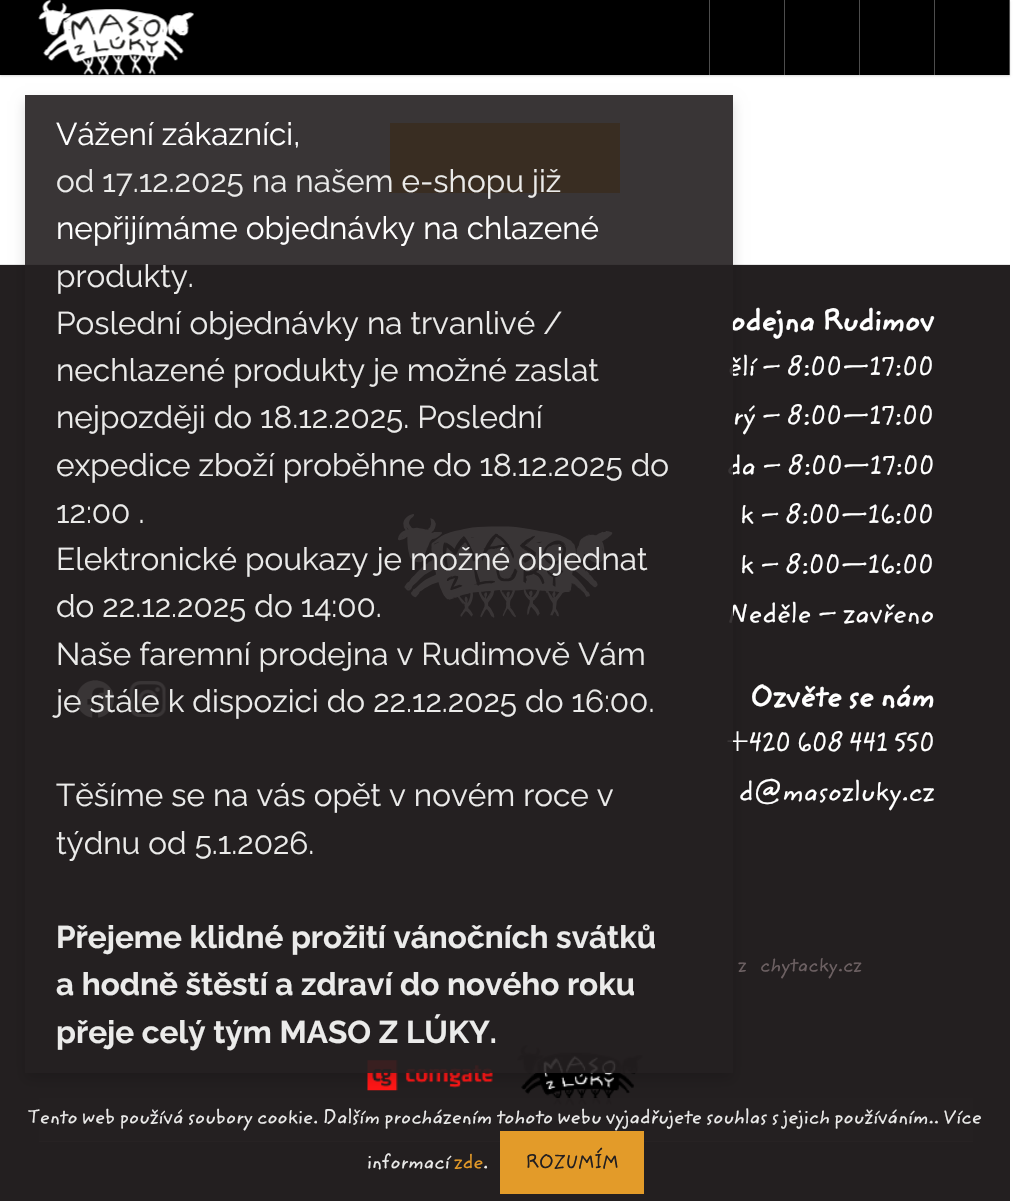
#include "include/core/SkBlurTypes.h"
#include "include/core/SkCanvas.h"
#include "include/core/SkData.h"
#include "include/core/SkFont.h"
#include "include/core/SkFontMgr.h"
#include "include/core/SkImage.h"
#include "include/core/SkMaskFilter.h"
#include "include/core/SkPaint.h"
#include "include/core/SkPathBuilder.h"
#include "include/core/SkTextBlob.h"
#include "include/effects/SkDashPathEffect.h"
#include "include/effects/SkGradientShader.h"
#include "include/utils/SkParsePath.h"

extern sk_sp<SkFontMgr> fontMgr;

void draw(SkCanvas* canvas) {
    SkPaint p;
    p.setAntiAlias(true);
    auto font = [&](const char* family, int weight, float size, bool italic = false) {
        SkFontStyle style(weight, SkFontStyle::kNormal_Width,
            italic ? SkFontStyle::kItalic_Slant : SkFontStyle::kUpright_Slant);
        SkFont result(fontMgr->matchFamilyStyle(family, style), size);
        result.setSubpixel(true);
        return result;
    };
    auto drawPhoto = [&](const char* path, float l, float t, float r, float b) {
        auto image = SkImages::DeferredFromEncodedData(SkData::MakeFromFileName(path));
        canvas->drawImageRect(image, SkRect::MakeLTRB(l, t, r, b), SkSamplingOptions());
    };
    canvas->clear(0xFFFFFFFF);
    p.setColor(0x29000000);
    p.setMaskFilter(SkMaskFilter::MakeBlur(kNormal_SkBlurStyle, 1));
    canvas->drawRect(SkRect::MakeLTRB(0, 1, 1010, 76), p);
    p.setMaskFilter(nullptr);
    p.setColor(0xFF000000);
    canvas->drawRect(SkRect::MakeLTRB(0, 0, 1009, 75), p);
    drawPhoto("media/1.png", 38, 0, 194, 75);
    {
        const struct { float l, t, r, b; SkColor color; } items[] = {
            {1009, 0, 1010, 75, 0xFF4D4D4D},
            {709, 0, 710, 75, 0xFF4D4D4D},
            {784, 0, 785, 75, 0xFF4D4D4D},
            {859, 0, 860, 75, 0xFF4D4D4D},
            {934, 0, 935, 75, 0xFF4D4D4D},
            {390, 123, 620, 193, 0xFFF7A729},
            {0, 265, 1010, 1201, 0xFF231F20},
            {0, 264, 1010, 265, 0xFFE6E6E6},
        };
        for (auto [l, t, r, b, color] : items) {
            p.setColor(color);
            canvas->drawRect(SkRect::MakeLTRB(l, t, r, b), p);
        }
    }
    drawPhoto("media/2.png", 398, 514, 613, 618);
    drawPhoto("media/3.png", 76, 680, 114, 718);
    drawPhoto("media/4.png", 129, 681, 166, 717);
    drawPhoto("media/5.png", 367, 1060, 493, 1091);
    drawPhoto("media/6.png", 517, 1045, 643, 1106);
    canvas->save();
    canvas->clipPath(SkPathBuilder(SkPathFillType::kEvenOdd).moveTo(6, 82).lineTo(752, 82).lineTo(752, 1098).lineTo(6, 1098).close().moveTo(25, 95).lineTo(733, 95).lineTo(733, 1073).lineTo(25, 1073).close().detach(), true);
    p.setColor(0x24000000);
    p.setMaskFilter(SkMaskFilter::MakeBlur(kNormal_SkBlurStyle, 6));
    canvas->drawRect(SkRect::MakeLTRB(25, 101, 733, 1079), p);
    p.setMaskFilter(nullptr);
    canvas->restore();
    auto font1 = font("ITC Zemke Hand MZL", 700, 30);
    p.setColor(0xFFFFFFFF);
    canvas->drawString("odejna Rudimov", 730, 330, font1, p);
    auto font2 = font("ITC Zemke Hand MZL", 400, 27.5f);
    {
        const struct { const char* s; float x, y; } items[] = {
            {"ělí – 8:00—17:00", 728, 375},
            {"da – 8:00—17:00", 727, 474},
            {"Neděle – zavřeno", 728, 622},
            {"+420 608 441 550", 726, 751},
        };
        for (auto [s, x, y] : items) {
            canvas->drawString(s, x, y, font2, p);
        }
    }
    p.setColor(0xE6231F20);
    canvas->drawRect(SkRect::MakeLTRB(25, 95, 733, 1073), p);
    auto font3 = font("Raleway", 400, 31.5f);
    p.setColor(0xFFFFFFFF);
    canvas->drawString("Vážení zákazníci,", 56, 145, font3, p);
    p.setColor(0xFFEBEBEA);
    canvas->drawString("od 17.12.2025 na našem e-shopu již", 56, 192, font3, p);
    p.setColor(0xFFFFFFFF);
    canvas->drawString("nepřijímáme objednávky na chlazené", 56, 239, font3, p);
    p.setColor(0xFFEBEBEA);
    {
        const struct { const char* s; float x, y; } items[] = {
            {"produkty.", 56, 287},
            {"Poslední objednávky na trvanlivé /", 56, 334},
            {"nechlazené produkty je možné zaslat", 56, 381},
            {"nejpozději do 18.12.2025. Poslední", 56, 428},
            {"expedice zboží proběhne do 18.12.2025 do", 56, 476},
            {"12:00 .", 56, 523},
            {"Elektronické poukazy je možné objednat", 56, 570},
            {"do 22.12.2025 do 14:00.", 56, 617},
            {"Naše faremní prodejna v Rudimově Vám", 56, 665},
            {"je stále k dispozici do 22.12.2025 do 16:00.", 56, 712},
            {"Těšíme se na vás opět v novém roce v", 56, 806},
            {"týdnu od 5.1.2026.", 56, 854},
        };
        for (auto [s, x, y] : items) {
            canvas->drawString(s, x, y, font3, p);
        }
    }
    auto font4 = font("Raleway", 700, 31.5f);
    {
        const struct { const char* s; float x, y; } items[] = {
            {"Přejeme klidné prožití vánočních svátků", 56, 948},
            {"a hodně štěstí a zdraví do nového roku", 56, 995},
            {"přeje celý tým MASO Z LÚKY.", 56, 1043},
        };
        for (auto [s, x, y] : items) {
            canvas->drawString(s, x, y, font4, p);
        }
    }
    p.setColor(0xFFFFFFFF);
    {
        const struct { const char* s; float x, y; } items[] = {
            {"rý – 8:00—17:00", 733, 424},
            {"k – 8:00—16:00", 740, 523},
            {"k – 8:00—16:00", 740, 573},
        };
        for (auto [s, x, y] : items) {
            canvas->drawString(s, x, y, font2, p);
        }
    }
    canvas->drawString("Ozvěte se nám", 750, 706, font1, p);
    canvas->drawString("d@masozluky.cz", 739, 800, font2, p);
    auto font5 = font("ITC Zemke Hand MZL", 400, 20);
    p.setColor(0xFF6C6062);
    canvas->drawString("z", 738, 971, font5, p);
    canvas->drawString("chytacky.cz", 760, 971, font5, p);
    p.setColor(0xFF413A3B);
    canvas->drawRect(SkRect::MakeLTRB(39, 1141, 973, 1142), p);
    p.setColor(0xE6231F20);
    canvas->drawRect(SkRect::MakeLTRB(39, 1098, 973, 1142), p);
    p.setColor(0xFFEBEBEA);
    canvas->drawString("Tento web používá soubory cookie. Dalším procházením tohoto webu vyjadřujete souhlas s jejich používáním.. Více", 28, 1123, font5, p);
    canvas->drawString("informací", 367, 1168, font5, p);
    p.setColor(0xFFE29928);
    canvas->drawString("zde", 454, 1168, font5, p);
    p.setColor(0xFFEBEBEA);
    canvas->drawString(".", 483, 1168, font5, p);
    p.setColor(0xE6F7A729);
    canvas->drawRect(SkRect::MakeLTRB(500, 1131, 644, 1194), p);
    p.setColor(0xFF231F20);
    canvas->drawString("ROZUMÍM", 525, 1168, font5, p);
}
